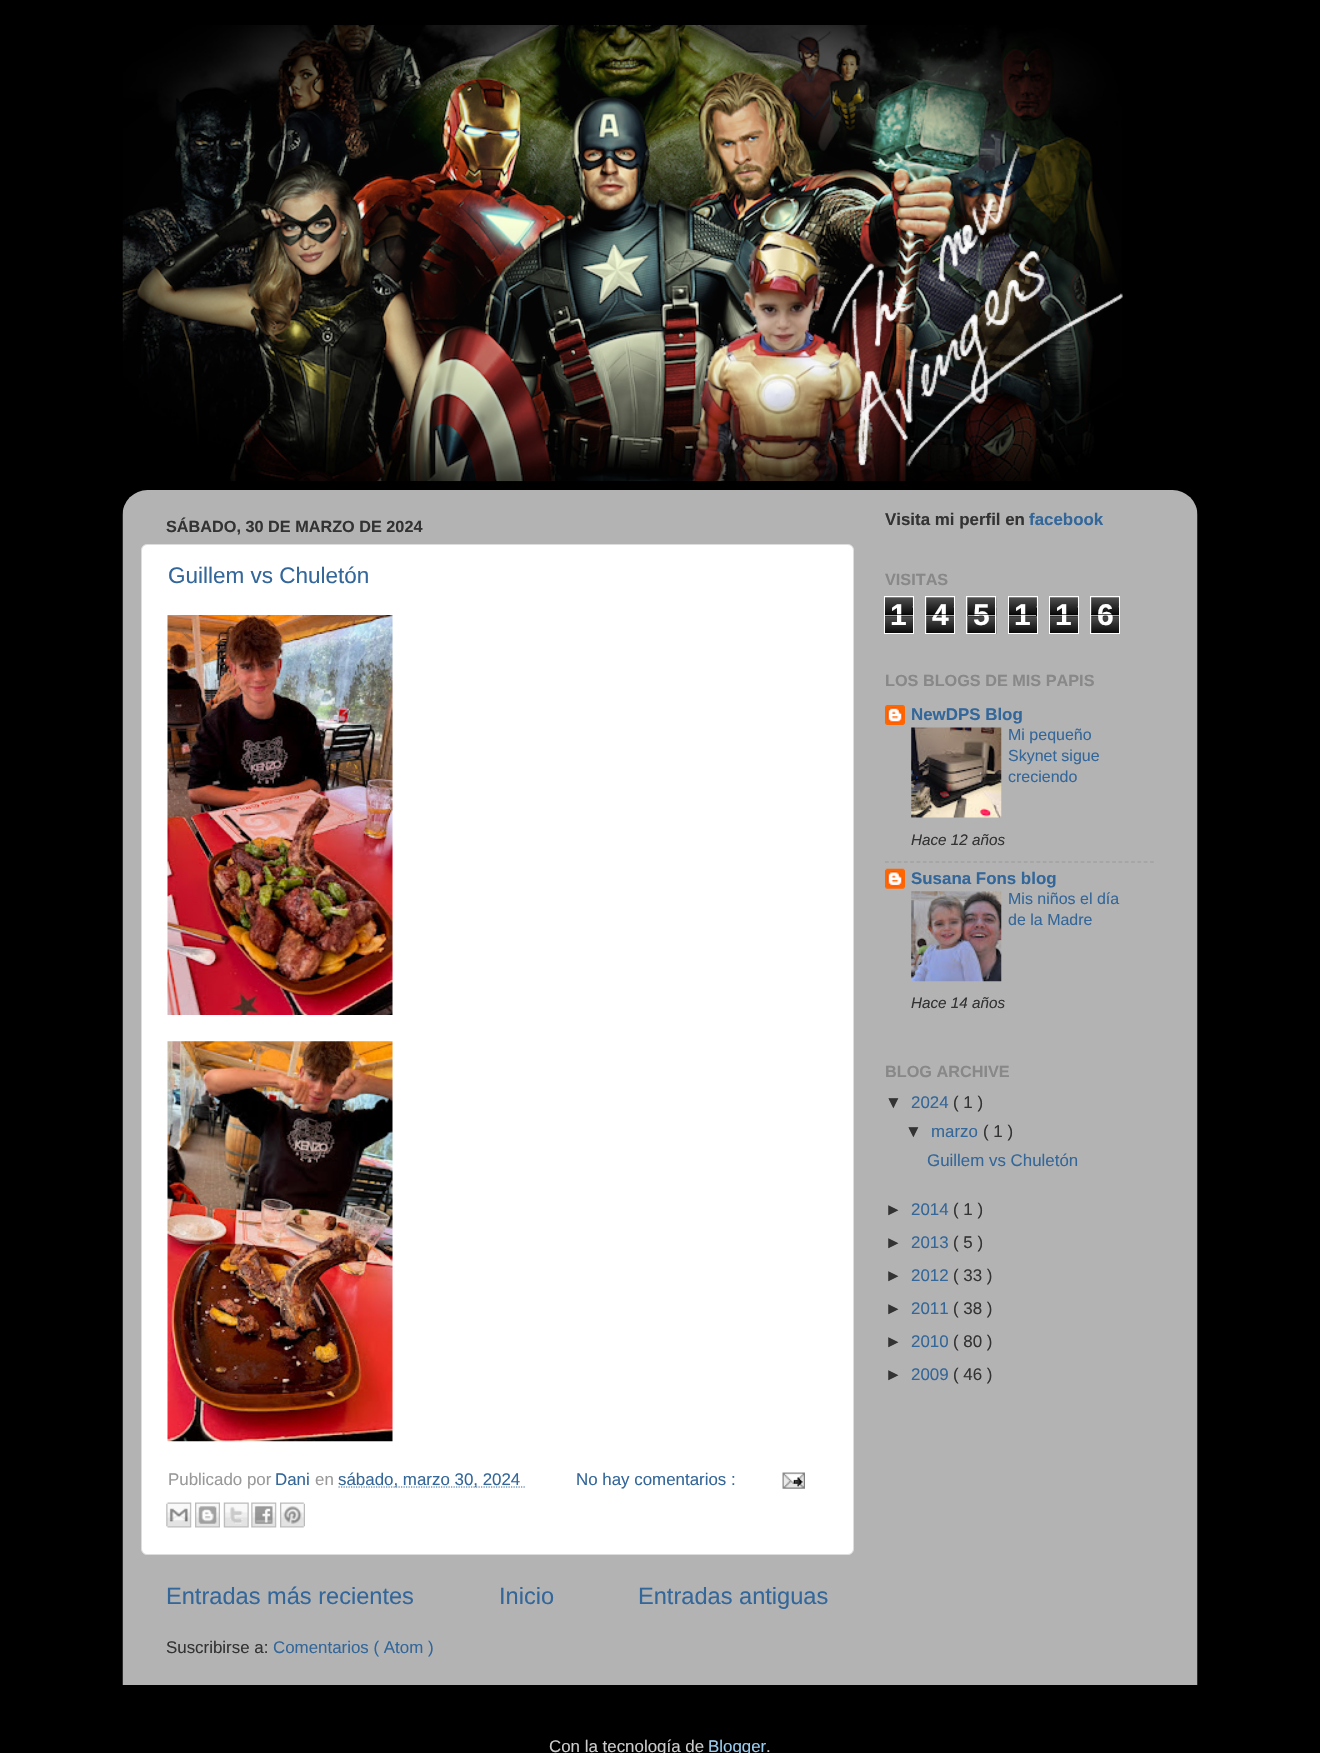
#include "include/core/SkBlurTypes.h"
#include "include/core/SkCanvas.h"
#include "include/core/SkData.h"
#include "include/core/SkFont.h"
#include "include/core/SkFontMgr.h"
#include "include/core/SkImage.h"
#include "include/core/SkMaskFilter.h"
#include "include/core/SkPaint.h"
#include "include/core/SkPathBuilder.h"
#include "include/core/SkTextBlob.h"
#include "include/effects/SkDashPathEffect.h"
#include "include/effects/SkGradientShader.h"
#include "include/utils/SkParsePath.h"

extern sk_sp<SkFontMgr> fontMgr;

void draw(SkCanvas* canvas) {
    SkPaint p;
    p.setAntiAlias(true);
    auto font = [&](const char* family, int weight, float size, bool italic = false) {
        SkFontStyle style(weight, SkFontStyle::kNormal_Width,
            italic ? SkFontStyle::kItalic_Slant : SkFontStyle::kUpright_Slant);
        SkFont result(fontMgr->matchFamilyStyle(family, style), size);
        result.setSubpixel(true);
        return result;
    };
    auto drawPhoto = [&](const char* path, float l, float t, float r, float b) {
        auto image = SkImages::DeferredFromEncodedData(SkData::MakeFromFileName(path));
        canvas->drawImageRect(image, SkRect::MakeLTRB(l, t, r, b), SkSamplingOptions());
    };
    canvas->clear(0xFF000000);
    drawPhoto("media/1.png", 122, 25, 1123, 482);
    drawPhoto("media/2.png", 122, 490, 1198, 1685);
    auto font1 = font("Liberation Sans", 700, 16.25f);
    p.setColor(0xFF333333);
    canvas->drawString("SÁBADO, 30 DE MARZO DE 2024", 166, 532, font1, p);
    p.setColor(0xFFFFFFFF);
    canvas->drawRoundRect(SkRect::MakeLTRB(141.5f, 544.5f, 853.5f, 1554.5f), 5.5f, 5.5f, p);
    p.setStyle(SkPaint::kStroke_Style);
    p.setStrokeWidth(1);
    p.setColor(0xFFDDDDDD);
    canvas->drawRoundRect(SkRect::MakeLTRB(141.5f, 544.5f, 853.5f, 1554.5f), 5.5f, 5.5f, p);
    auto font2 = font("Liberation Sans", 400, 22.5f);
    p.setStyle(SkPaint::kFill_Style);
    p.setColor(0xFF336699);
    canvas->drawString("Guillem vs Chuletón", 168, 583, font2, p);
    drawPhoto("media/3.png", 167, 615, 393, 1015);
    drawPhoto("media/4.png", 167, 1041, 393, 1442);
    auto font3 = font("Liberation Sans", 400, 16.9f);
    p.setColor(0xFF999999);
    canvas->drawString("Publicado por", 168, 1485, font3, p);
    p.setColor(0xFF336699);
    canvas->drawString("Dani", 275, 1485, font3, p);
    p.setColor(0xFF999999);
    canvas->drawString("en", 315, 1485, font3, p);
    p.setStyle(SkPaint::kStroke_Style);
    p.setStrokeWidth(1.2f);
    p.setColor(0xFF336699);
    p.setPathEffect(SkDashPathEffect::Make({{1.25f, 1.25f}}, 0));
    canvas->drawPath(SkPathBuilder().moveTo(338.5f, 1487).lineTo(525, 1487).detach(), p);
    p.setPathEffect(nullptr);
    p.setStyle(SkPaint::kFill_Style);
    canvas->drawString("sábado, marzo 30, 2024", 338, 1485, font3, p);
    canvas->drawString("No hay comentarios :", 576, 1485, font3, p);
    drawPhoto("media/5.png", 782, 1472, 805, 1489);
    drawPhoto("media/6.png", 166, 1502, 192, 1528);
    drawPhoto("media/7.png", 195, 1502, 220, 1528);
    drawPhoto("media/8.png", 223, 1502, 249, 1528);
    drawPhoto("media/9.png", 251, 1502, 277, 1528);
    drawPhoto("media/10.png", 280, 1502, 305, 1528);
    auto font4 = font("Liberation Sans", 400, 23.6f);
    {
        const struct { const char* s; float x, y; } items[] = {
            {"Entradas más recientes", 166, 1604},
            {"Inicio", 499, 1604},
            {"Entradas antiguas", 638, 1604},
        };
        for (auto [s, x, y] : items) {
            canvas->drawString(s, x, y, font4, p);
        }
    }
    p.setColor(0xFF333333);
    canvas->drawString("Suscribirse a:", 166, 1653, font3, p);
    p.setColor(0xFF336699);
    canvas->drawString("Comentarios ( Atom )", 273, 1653, font3, p);
    auto font5 = font("Liberation Sans", 700, 16.9f);
    p.setColor(0xFF333333);
    canvas->drawString("Visita mi perfil en", 885, 525, font5, p);
    p.setColor(0xFF336699);
    canvas->drawString("facebook", 1029, 525, font5, p);
    p.setColor(0xFF888888);
    canvas->drawString("VISITAS", 885, 585, font1, p);
    drawPhoto("media/11.png", 885, 597, 913, 633);
    p.setStyle(SkPaint::kStroke_Style);
    p.setStrokeWidth(1);
    p.setColor(0xFFFFFFFF);
    canvas->drawRect(SkRect::MakeLTRB(884.5f, 596.5f, 913.5f, 633.5f), p);
    auto font6 = font("Liberation Sans", 700, 30);
    p.setStyle(SkPaint::kFill_Style);
    canvas->drawString("1", 890, 625, font6, p);
    p.setColor(0xA6000000);
    canvas->drawRect(SkRect::MakeLTRB(885, 614, 913, 615), p);
    p.setColor(0xA6FFFFFF);
    canvas->drawRect(SkRect::MakeLTRB(885, 615, 913, 616), p);
    drawPhoto("media/12.png", 926, 597, 954, 633);
    p.setStyle(SkPaint::kStroke_Style);
    p.setColor(0xFFFFFFFF);
    canvas->drawRect(SkRect::MakeLTRB(925.5f, 596.5f, 954.5f, 633.5f), p);
    p.setStyle(SkPaint::kFill_Style);
    canvas->drawString("4", 932, 625, font6, p);
    p.setColor(0xA6000000);
    canvas->drawRect(SkRect::MakeLTRB(926, 614, 954, 615), p);
    p.setColor(0xA6FFFFFF);
    canvas->drawRect(SkRect::MakeLTRB(926, 615, 954, 616), p);
    drawPhoto("media/13.png", 967, 597, 997, 634);
    p.setStyle(SkPaint::kStroke_Style);
    p.setColor(0xFFFFFFFF);
    canvas->drawRect(SkRect::MakeLTRB(966.5f, 596.5f, 995.5f, 633.5f), p);
    p.setStyle(SkPaint::kFill_Style);
    canvas->drawString("5", 973, 625, font6, p);
    p.setColor(0xA6000000);
    canvas->drawRect(SkRect::MakeLTRB(968, 614, 995, 615), p);
    p.setColor(0xA6FFFFFF);
    canvas->drawRect(SkRect::MakeLTRB(968, 615, 995, 616), p);
    drawPhoto("media/14.png", 1009, 597, 1037, 633);
    p.setStyle(SkPaint::kStroke_Style);
    p.setColor(0xFFFFFFFF);
    canvas->drawRect(SkRect::MakeLTRB(1008.5f, 596.5f, 1037.5f, 633.5f), p);
    p.setStyle(SkPaint::kFill_Style);
    canvas->drawString("1", 1014, 625, font6, p);
    p.setColor(0xA6000000);
    canvas->drawRect(SkRect::MakeLTRB(1009, 614, 1036, 615), p);
    p.setColor(0xA6FFFFFF);
    canvas->drawRect(SkRect::MakeLTRB(1009, 615, 1036, 616), p);
    drawPhoto("media/15.png", 1050, 597, 1078, 633);
    p.setStyle(SkPaint::kStroke_Style);
    p.setColor(0xFFFFFFFF);
    canvas->drawRect(SkRect::MakeLTRB(1049.5f, 596.5f, 1078.5f, 633.5f), p);
    p.setStyle(SkPaint::kFill_Style);
    canvas->drawString("1", 1055, 625, font6, p);
    p.setColor(0xA6000000);
    canvas->drawRect(SkRect::MakeLTRB(1050, 614, 1078, 615), p);
    p.setColor(0xA6FFFFFF);
    canvas->drawRect(SkRect::MakeLTRB(1050, 615, 1078, 616), p);
    drawPhoto("media/12.png", 1091, 597, 1119, 633);
    p.setStyle(SkPaint::kStroke_Style);
    p.setColor(0xFFFFFFFF);
    canvas->drawRect(SkRect::MakeLTRB(1090.5f, 596.5f, 1119.5f, 633.5f), p);
    p.setStyle(SkPaint::kFill_Style);
    canvas->drawString("6", 1097, 625, font6, p);
    p.setColor(0xA6000000);
    canvas->drawRect(SkRect::MakeLTRB(1091, 614, 1119, 615), p);
    p.setColor(0xA6FFFFFF);
    canvas->drawRect(SkRect::MakeLTRB(1091, 615, 1119, 616), p);
    p.setColor(0xFF888888);
    canvas->drawString("LOS BLOGS DE MIS PAPIS", 885, 686, font1, p);
    drawPhoto("media/16.png", 885, 705, 905, 725);
    p.setColor(0xFF336699);
    canvas->drawString("NewDPS Blog", 911, 720, font5, p);
    drawPhoto("media/17.png", 911, 727, 1002, 818);
    auto font7 = font("Liberation Sans", 400, 16);
    {
        const struct { const char* s; float x, y; } items[] = {
            {"Mi pequeño", 1008, 740},
            {"Skynet sigue", 1008, 761},
            {"creciendo", 1008, 782},
        };
        for (auto [s, x, y] : items) {
            canvas->drawString(s, x, y, font7, p);
        }
    }
    auto font8 = font("Liberation Sans", 400, 15.25f, true);
    p.setColor(0xFF333333);
    canvas->drawString("Hace 12 años", 911, 845, font8, p);
    p.setStyle(SkPaint::kStroke_Style);
    p.setStrokeWidth(1.2f);
    p.setColor(0xFF9A9A9A);
    p.setPathEffect(SkDashPathEffect::Make({{3.75f, 2.56f}}, 0));
    canvas->drawPath(SkPathBuilder().moveTo(885, 862).lineTo(1154, 862).detach(), p);
    p.setPathEffect(nullptr);
    drawPhoto("media/18.png", 885, 868, 905, 889);
    p.setStyle(SkPaint::kFill_Style);
    p.setColor(0xFF336699);
    canvas->drawString("Susana Fons blog", 911, 884, font5, p);
    drawPhoto("media/19.png", 911, 891, 1002, 982);
    canvas->drawString("Mis niños el día", 1008, 904, font7, p);
    canvas->drawString("de la Madre", 1008, 925, font7, p);
    p.setColor(0xFF333333);
    canvas->drawString("Hace 14 años", 911, 1008, font8, p);
    p.setColor(0xFF888888);
    canvas->drawString("BLOG ARCHIVE", 885, 1077, font1, p);
    p.setColor(0xFF333333);
    canvas->drawString("▼", 885, 1108, font3, p);
    p.setColor(0xFF336699);
    canvas->drawString("2024", 911, 1108, font3, p);
    p.setColor(0xFF333333);
    canvas->drawString("( 1 )", 953, 1108, font3, p);
    canvas->drawString("▼", 905, 1137, font3, p);
    p.setColor(0xFF336699);
    canvas->drawString("marzo", 931, 1137, font3, p);
    p.setColor(0xFF333333);
    canvas->drawString("( 1 )", 983, 1137, font3, p);
    p.setColor(0xFF336699);
    canvas->drawString("Guillem vs Chuletón", 927, 1166, font3, p);
    p.setColor(0xFF333333);
    canvas->drawString("►", 885, 1215, font3, p);
    p.setColor(0xFF336699);
    canvas->drawString("2014", 911, 1215, font3, p);
    p.setColor(0xFF333333);
    canvas->drawString("( 1 )", 953, 1215, font3, p);
    canvas->drawString("►", 885, 1248, font3, p);
    p.setColor(0xFF336699);
    canvas->drawString("2013", 911, 1248, font3, p);
    p.setColor(0xFF333333);
    canvas->drawString("( 5 )", 953, 1248, font3, p);
    canvas->drawString("►", 885, 1281, font3, p);
    p.setColor(0xFF336699);
    canvas->drawString("2012", 911, 1281, font3, p);
    p.setColor(0xFF333333);
    canvas->drawString("( 33 )", 953, 1281, font3, p);
    canvas->drawString("►", 885, 1314, font3, p);
    p.setColor(0xFF336699);
    canvas->drawString("2011", 911, 1314, font3, p);
    p.setColor(0xFF333333);
    canvas->drawString("( 38 )", 953, 1314, font3, p);
    canvas->drawString("►", 885, 1347, font3, p);
    p.setColor(0xFF336699);
    canvas->drawString("2010", 911, 1347, font3, p);
    p.setColor(0xFF333333);
    canvas->drawString("( 80 )", 953, 1347, font3, p);
    canvas->drawString("►", 885, 1380, font3, p);
    p.setColor(0xFF336699);
    canvas->drawString("2009", 911, 1380, font3, p);
    p.setColor(0xFF333333);
    canvas->drawString("( 46 )", 953, 1380, font3, p);
    p.setColor(0xFFCCCCCC);
    canvas->drawString("Con la tecnología de", 549, 1752, font3, p);
    p.setColor(0xFF99CCEE);
    canvas->drawString("Blogger", 708, 1752, font3, p);
    p.setColor(0xFFCCCCCC);
    canvas->drawString(".", 766, 1752, font3, p);
}
